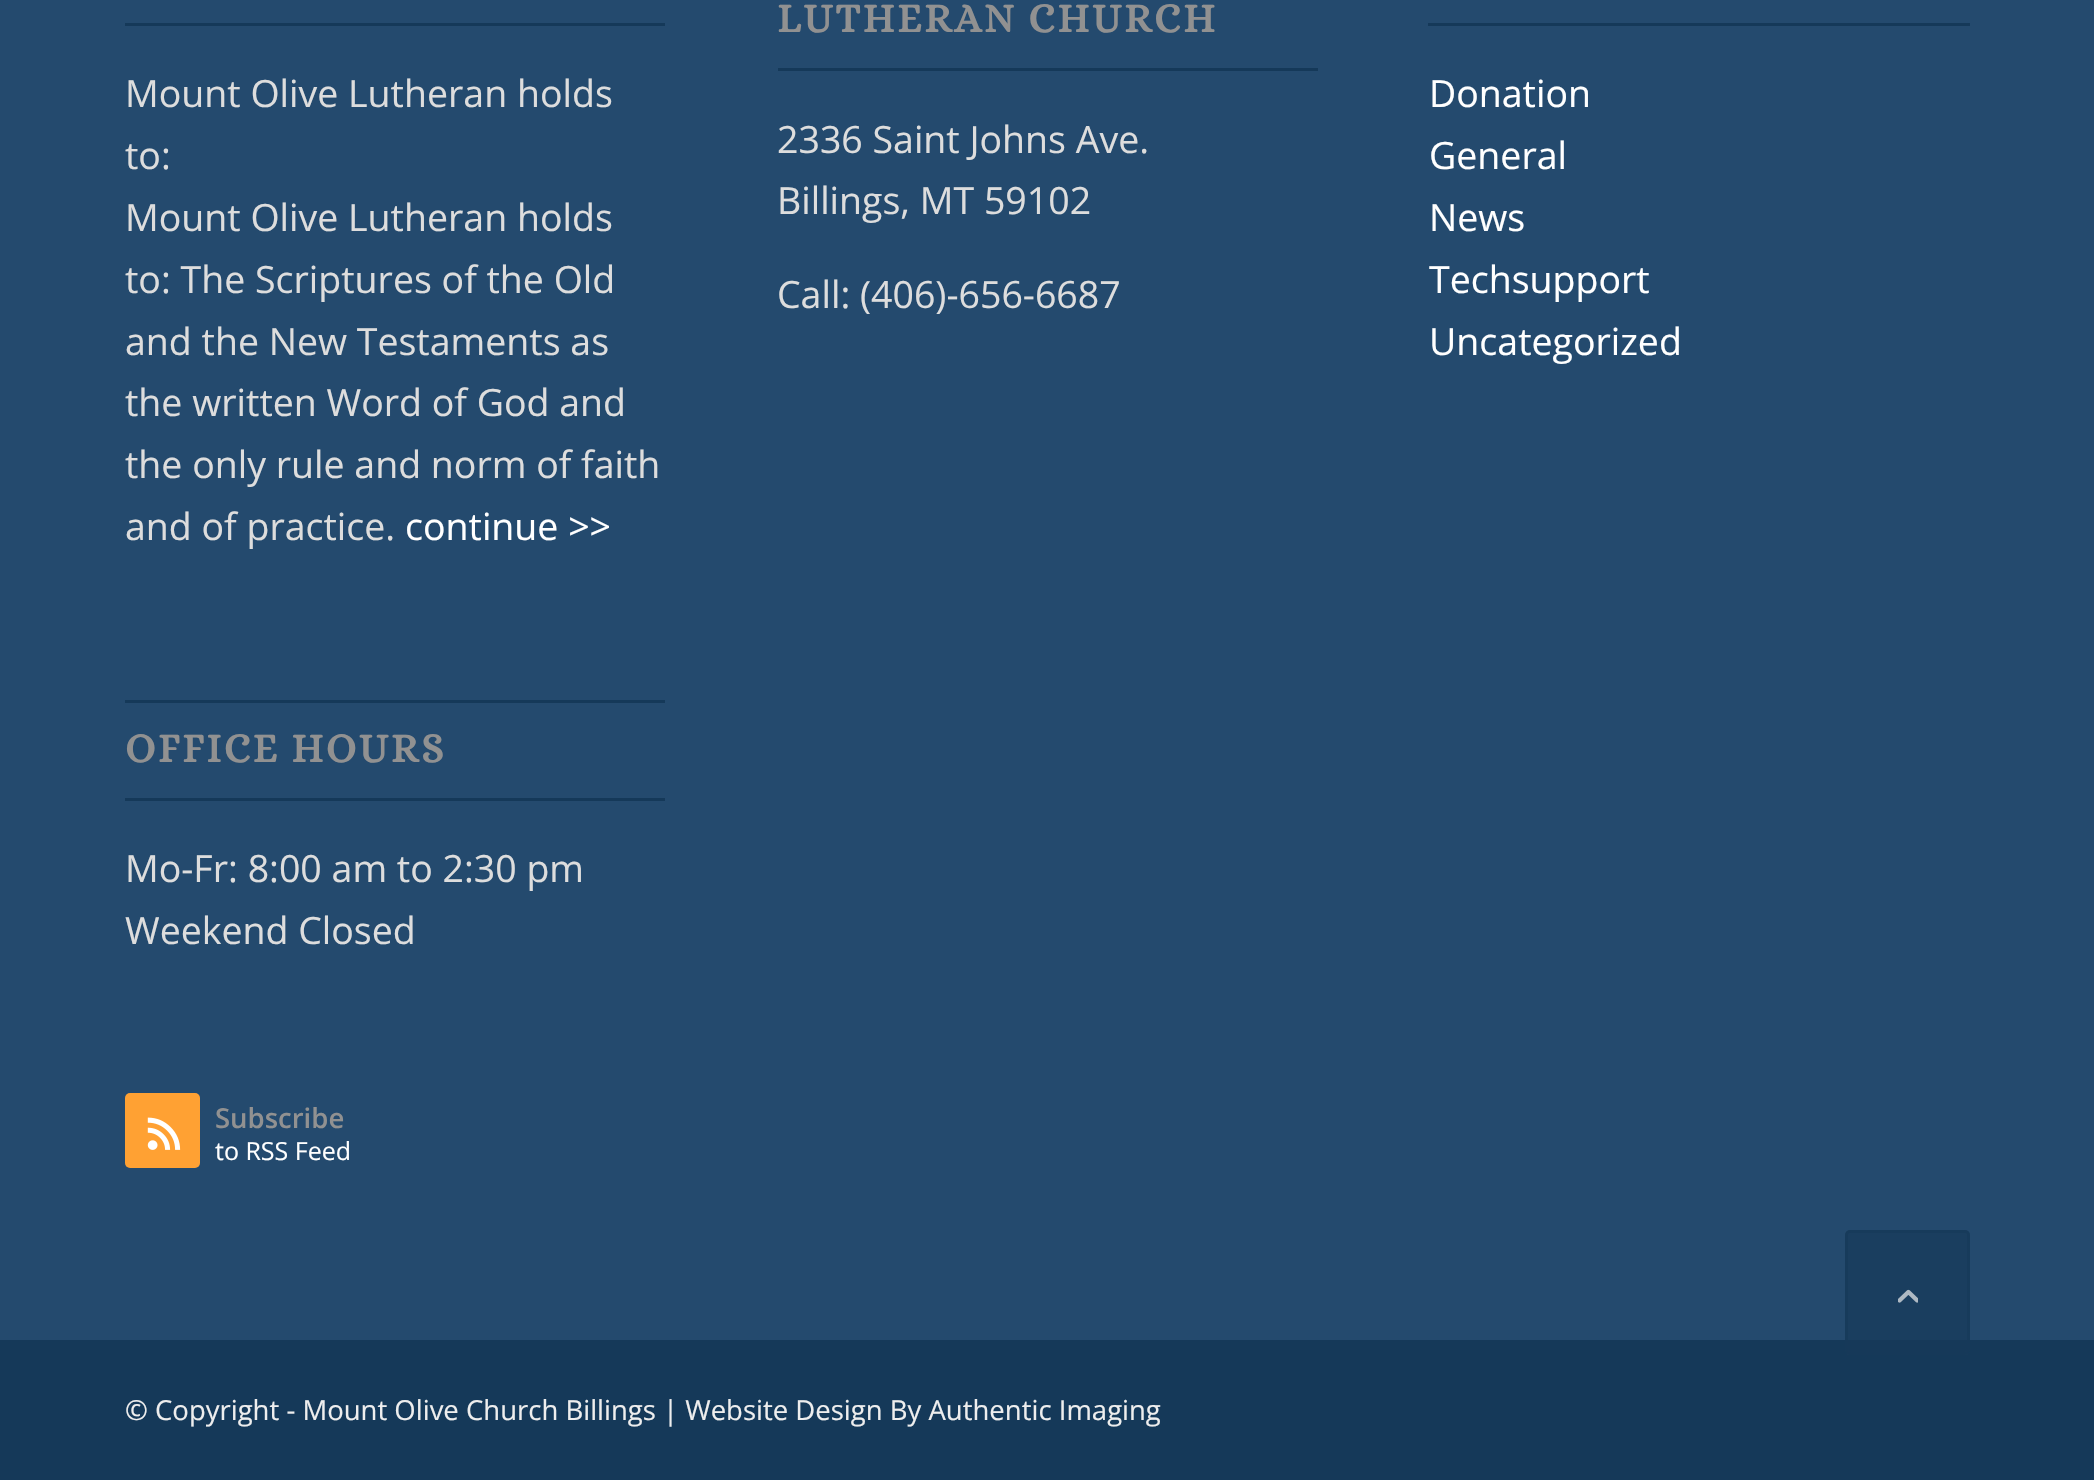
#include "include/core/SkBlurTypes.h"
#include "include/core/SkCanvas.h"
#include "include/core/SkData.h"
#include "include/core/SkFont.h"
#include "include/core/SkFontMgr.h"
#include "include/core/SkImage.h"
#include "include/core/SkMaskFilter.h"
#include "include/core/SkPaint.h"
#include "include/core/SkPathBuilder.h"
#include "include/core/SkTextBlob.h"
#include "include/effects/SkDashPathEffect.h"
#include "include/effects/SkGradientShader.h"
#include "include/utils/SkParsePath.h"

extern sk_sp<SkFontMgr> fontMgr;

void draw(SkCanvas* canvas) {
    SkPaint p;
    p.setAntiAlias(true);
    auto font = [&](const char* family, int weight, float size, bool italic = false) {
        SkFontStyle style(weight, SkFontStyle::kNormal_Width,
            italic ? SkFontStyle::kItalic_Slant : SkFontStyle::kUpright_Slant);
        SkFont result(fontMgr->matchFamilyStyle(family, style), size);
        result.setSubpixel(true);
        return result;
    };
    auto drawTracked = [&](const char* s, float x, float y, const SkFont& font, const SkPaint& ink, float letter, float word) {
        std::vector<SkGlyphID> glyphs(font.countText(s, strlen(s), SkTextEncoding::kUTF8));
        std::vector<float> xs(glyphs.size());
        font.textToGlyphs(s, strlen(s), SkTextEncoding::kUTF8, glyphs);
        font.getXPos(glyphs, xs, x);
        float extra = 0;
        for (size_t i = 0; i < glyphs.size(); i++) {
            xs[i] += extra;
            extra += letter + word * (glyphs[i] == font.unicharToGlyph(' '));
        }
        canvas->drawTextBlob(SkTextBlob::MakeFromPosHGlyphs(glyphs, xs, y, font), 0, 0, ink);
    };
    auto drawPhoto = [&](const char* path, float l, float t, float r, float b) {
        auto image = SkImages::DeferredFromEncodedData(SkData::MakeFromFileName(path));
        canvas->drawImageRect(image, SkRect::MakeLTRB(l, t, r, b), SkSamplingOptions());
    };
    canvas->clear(0xFF244A6E);
    p.setColor(0xFF153959);
    canvas->drawRect(SkRect::MakeLTRB(125, 23, 665, 26), p);
    auto font1 = font("Open Sans", 400, 37.5f);
    p.setColor(0xFFDDDDDD);
    {
        const struct { const char* s; float x, y; } items[] = {
            {"Mount Olive Lutheran holds", 125, 107},
            {"to:", 125, 169},
            {"Mount Olive Lutheran holds", 125, 231},
            {"to: The Scriptures of the Old", 125, 293},
            {"and the New Testaments as", 125, 355},
            {"the written Word of God and", 125, 416},
            {"the only rule and norm of faith", 125, 478},
            {"and of practice.", 125, 540},
        };
        for (auto [s, x, y] : items) {
            canvas->drawString(s, x, y, font1, p);
        }
    }
    p.setColor(0xFFFFFFFF);
    canvas->drawString("continue >>", 405, 540, font1, p);
    p.setColor(0xFF153959);
    canvas->drawRect(SkRect::MakeLTRB(125, 700, 665, 703), p);
    canvas->drawRect(SkRect::MakeLTRB(125, 798, 665, 801), p);
    auto font2 = font("Alice", 700, 41.25f);
    p.setColor(0xFF919191);
    drawTracked("OFFICE HOURS", 125, 762, font2, p, 2.5f, 0);
    p.setColor(0xFFDDDDDD);
    canvas->drawString("Mo-Fr: 8:00 am to 2:30 pm", 125, 882, font1, p);
    canvas->drawString("Weekend Closed", 125, 944, font1, p);
    p.setColor(0xFFFFA133);
    canvas->drawRoundRect(SkRect::MakeLTRB(125, 1093, 200, 1168), 5, 5, p);
    drawPhoto("media/1.png", 147, 1117, 181, 1150);
    auto font3 = font("Open Sans", 600, 27.5f);
    p.setColor(0xFF919191);
    canvas->drawString("Subscribe", 215, 1128, font3, p);
    auto font4 = font("Open Sans", 400, 25);
    p.setColor(0xFFFFFFFF);
    canvas->drawString("to RSS Feed", 215, 1160, font4, p);
    p.setColor(0xFF153959);
    canvas->drawRect(SkRect::MakeLTRB(778, 68, 1318, 71), p);
    p.setColor(0xFF919191);
    drawTracked("LUTHERAN CHURCH", 777, 32, font2, p, 2.5f, 0);
    p.setColor(0xFFDDDDDD);
    {
        const struct { const char* s; float x, y; } items[] = {
            {"2336 Saint Johns Ave.", 777, 153},
            {"Billings, MT 59102", 777, 214},
            {"Call: (406)-656-6687", 777, 308},
        };
        for (auto [s, x, y] : items) {
            canvas->drawString(s, x, y, font1, p);
        }
    }
    p.setColor(0xFF153959);
    canvas->drawRect(SkRect::MakeLTRB(1428, 23, 1970, 26), p);
    p.setColor(0xFFFFFFFF);
    {
        const struct { const char* s; float x, y; } items[] = {
            {"Donation", 1429, 107},
            {"General", 1429, 169},
            {"News", 1429, 231},
            {"Techsupport", 1429, 293},
            {"Uncategorized", 1429, 355},
        };
        for (auto [s, x, y] : items) {
            canvas->drawString(s, x, y, font1, p);
        }
    }
    p.setColor(0xFF153959);
    canvas->drawRect(SkRect::MakeLTRB(0, 1340, 2094, 1480), p);
    auto font5 = font("Open Sans", 400, 27.5f);
    p.setColor(0xFFEEEEEE);
    canvas->drawString("© Copyright - Mount Olive Church Billings | Website Design By Authentic Imaging", 125, 1420, font5, p);
    p.setColor(0xB3153959);
    canvas->drawRoundRect(SkRect::MakeLTRB(1845, 1230, 1970, 1355), 5, 5, p);
    p.setStyle(SkPaint::kStroke_Style);
    p.setStrokeWidth(3);
    canvas->drawRoundRect(SkRect::MakeLTRB(1846.5f, 1231.5f, 1968.5f, 1353.5f), 3.5f, 3.5f, p);
    drawPhoto("media/2.png", 1898, 1289, 1918, 1303);
}
